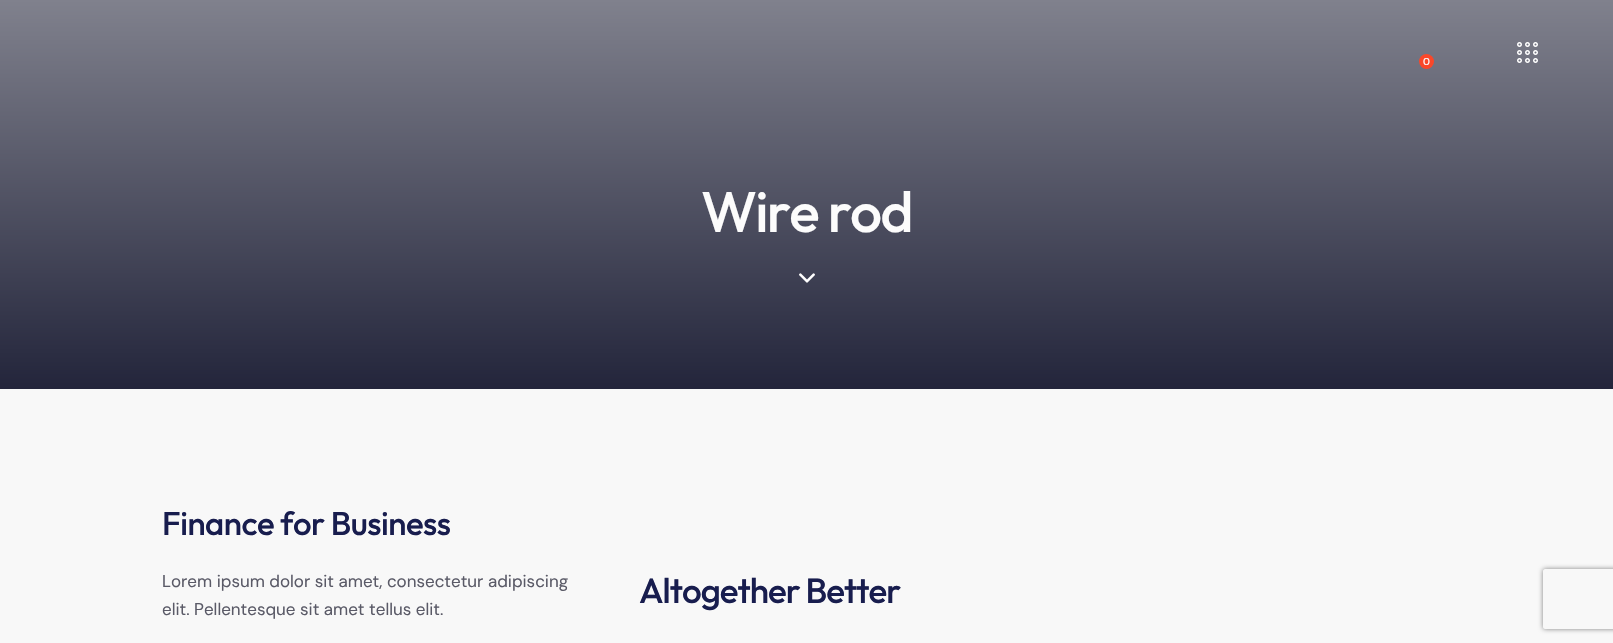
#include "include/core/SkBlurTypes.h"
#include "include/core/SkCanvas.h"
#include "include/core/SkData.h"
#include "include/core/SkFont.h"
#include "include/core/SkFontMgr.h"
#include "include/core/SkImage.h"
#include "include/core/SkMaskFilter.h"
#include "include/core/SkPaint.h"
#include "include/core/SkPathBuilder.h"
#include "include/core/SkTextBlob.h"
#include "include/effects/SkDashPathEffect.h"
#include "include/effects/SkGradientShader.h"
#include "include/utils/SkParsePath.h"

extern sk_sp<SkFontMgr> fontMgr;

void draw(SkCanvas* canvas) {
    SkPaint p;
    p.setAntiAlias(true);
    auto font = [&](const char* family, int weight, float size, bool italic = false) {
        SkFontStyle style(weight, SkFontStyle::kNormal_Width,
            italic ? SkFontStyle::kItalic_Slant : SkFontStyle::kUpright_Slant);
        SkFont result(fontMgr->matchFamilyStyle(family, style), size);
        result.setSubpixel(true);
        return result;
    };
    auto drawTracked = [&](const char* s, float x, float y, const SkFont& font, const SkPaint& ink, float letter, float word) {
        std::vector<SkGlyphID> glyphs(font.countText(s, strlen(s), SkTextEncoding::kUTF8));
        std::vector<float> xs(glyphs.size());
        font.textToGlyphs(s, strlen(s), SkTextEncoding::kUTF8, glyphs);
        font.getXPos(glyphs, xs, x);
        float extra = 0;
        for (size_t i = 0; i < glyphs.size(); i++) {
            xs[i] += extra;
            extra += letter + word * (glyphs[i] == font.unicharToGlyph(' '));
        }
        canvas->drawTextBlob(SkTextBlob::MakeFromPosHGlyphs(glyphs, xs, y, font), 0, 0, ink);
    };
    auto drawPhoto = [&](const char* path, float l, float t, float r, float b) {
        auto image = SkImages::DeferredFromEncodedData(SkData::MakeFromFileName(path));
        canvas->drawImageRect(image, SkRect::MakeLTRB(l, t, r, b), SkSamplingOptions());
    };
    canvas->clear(0xFFF8F8F8);
    {
        const SkColor colors[] = {0xFF80818D, 0xFF23253B};
        const float stops[] = {0, 1};
        const SkPoint ends[] = {{807, 0}, {807, 389}};
        p.setShader(SkGradientShader::MakeLinear(ends, colors, stops, 2, SkTileMode::kClamp));
        p.setAlpha(255);
    }
    canvas->drawRect(SkRect::MakeLTRB(0, 0, 1613, 389), p);
    p.setShader(nullptr);
    p.setColor(0xFFFA4729);
    canvas->drawCircle(1426.5f, 61.5f, 7.5f, p);
    auto font1 = font("DM Sans", 500, 10);
    p.setColor(0xFFFCFCFC);
    canvas->drawString("0", 1423, 65, font1, p);
    drawPhoto("media/1.png", 1517, 42, 1538, 63);
    auto font2 = font("Outfit", 500, 57);
    drawTracked("Wire rod", 701, 232, font2, p, -1.75f, 0);
    drawPhoto("media/2.png", 799, 273, 815, 283);
    auto font3 = font("Outfit", 500, 33);
    p.setColor(0xFF181D4E);
    drawTracked("Finance for Business", 162, 535, font3, p, -0.5f, 0);
    auto font4 = font("DM Sans", 400, 17);
    p.setColor(0xFF5A5A67);
    canvas->drawString("Lorem ipsum dolor sit amet, consectetur adipiscing", 162, 587, font4, p);
    canvas->drawString("elit. Pellentesque sit amet tellus elit.", 162, 615, font4, p);
    auto font5 = font("Outfit", 500, 35);
    p.setColor(0xFF181D4E);
    drawTracked("Altogether Better", 639, 603, font5, p, -1, 0);
    canvas->save();
    canvas->clipPath(SkPathBuilder(SkPathFillType::kEvenOdd).moveTo(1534, 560).lineTo(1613, 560).lineTo(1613, 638).lineTo(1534, 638).close().moveTo(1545, 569).lineTo(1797, 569).cubicTo(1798, 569, 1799, 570, 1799, 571).lineTo(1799, 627).cubicTo(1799, 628, 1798, 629, 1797, 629).lineTo(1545, 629).cubicTo(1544, 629, 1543, 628, 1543, 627).lineTo(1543, 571).cubicTo(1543, 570, 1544, 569, 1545, 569).close().detach(), true);
    p.setColor(0xFF808080);
    p.setMaskFilter(SkMaskFilter::MakeBlur(kNormal_SkBlurStyle, 2.5f));
    canvas->drawRoundRect(SkRect::MakeLTRB(1543, 569, 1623, 629), 2, 2, p);
    p.setMaskFilter(nullptr);
    canvas->restore();
}
